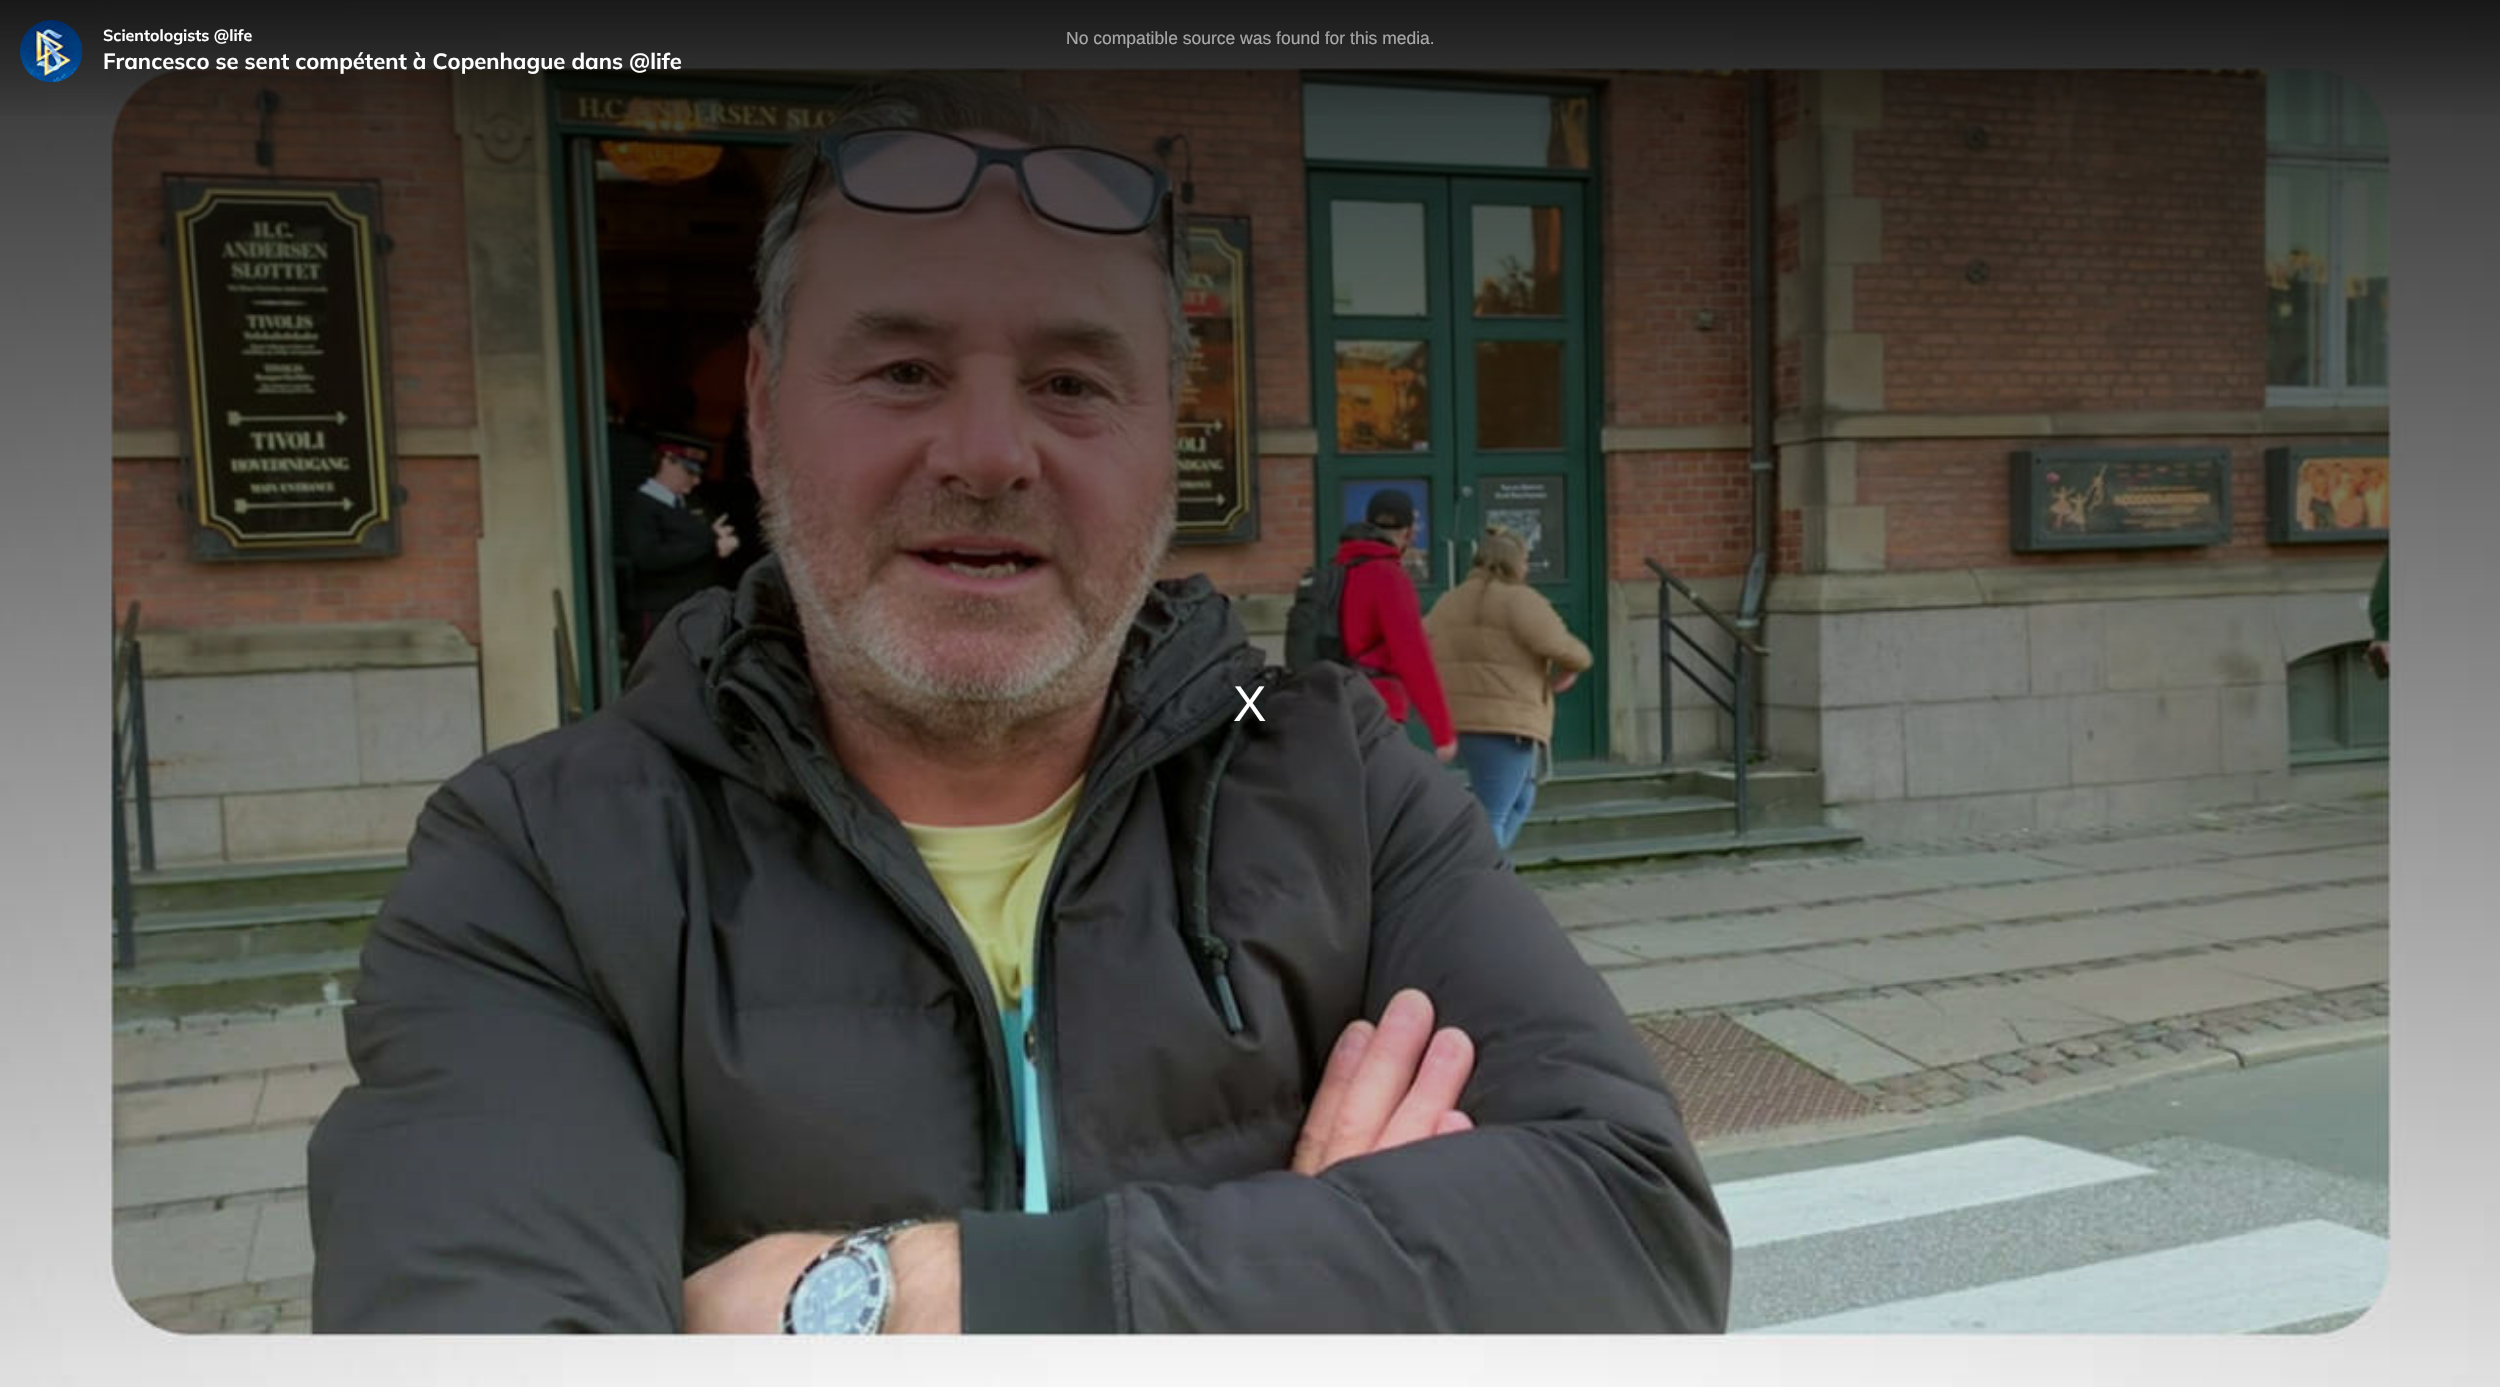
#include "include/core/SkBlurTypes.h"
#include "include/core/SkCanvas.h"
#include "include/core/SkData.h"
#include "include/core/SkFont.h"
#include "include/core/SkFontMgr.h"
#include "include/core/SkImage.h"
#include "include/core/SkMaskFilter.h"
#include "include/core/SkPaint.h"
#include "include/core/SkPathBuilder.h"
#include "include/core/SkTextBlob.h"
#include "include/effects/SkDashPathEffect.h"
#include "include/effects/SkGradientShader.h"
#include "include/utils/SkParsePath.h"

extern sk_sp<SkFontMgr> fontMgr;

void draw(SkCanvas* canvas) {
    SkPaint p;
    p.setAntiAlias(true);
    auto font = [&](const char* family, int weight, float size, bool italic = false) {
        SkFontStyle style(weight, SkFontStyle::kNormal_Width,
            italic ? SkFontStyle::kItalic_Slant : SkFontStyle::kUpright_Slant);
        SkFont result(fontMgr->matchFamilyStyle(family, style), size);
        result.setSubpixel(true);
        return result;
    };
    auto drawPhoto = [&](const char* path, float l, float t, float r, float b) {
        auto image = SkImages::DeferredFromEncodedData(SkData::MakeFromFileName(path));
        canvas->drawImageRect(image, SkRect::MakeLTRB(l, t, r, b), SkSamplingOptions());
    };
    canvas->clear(0xFFFFFFFF);
    drawPhoto("media/1.png", 0, 0, 2500, 1387);
    auto font1 = font("Liberation Sans", 400, 17.5f);
    p.setColor(0xFFFFFFFF);
    canvas->drawString("No compatible source was found for this media.", 1066, 44, font1, p);
    {
        const SkColor colors[] = {0x80000000, 0x00000000};
        const float stops[] = {0, 1};
        const SkPoint ends[] = {{1250, 0}, {1250, 125}};
        p.setShader(SkGradientShader::MakeLinear(ends, colors, stops, 2, SkTileMode::kClamp));
        p.setAlpha(255);
    }
    canvas->drawRect(SkRect::MakeLTRB(0, 0, 2500, 116), p);
    drawPhoto("media/2.png", 20, 20, 83, 83);
    auto font2 = font("Mulish", 700, 16);
    p.setShader(nullptr);
    p.setColor(0xFFFFFFFF);
    canvas->drawString("Scientologists @life", 103, 41, font2, p);
    auto font3 = font("Mulish", 700, 22);
    canvas->drawString("Francesco se sent compétent à Copenhague dans @life", 103, 69, font3, p);
    auto font4 = font("Liberation Sans", 400, 50);
    canvas->drawString("X", 1233, 721, font4, p);
}
